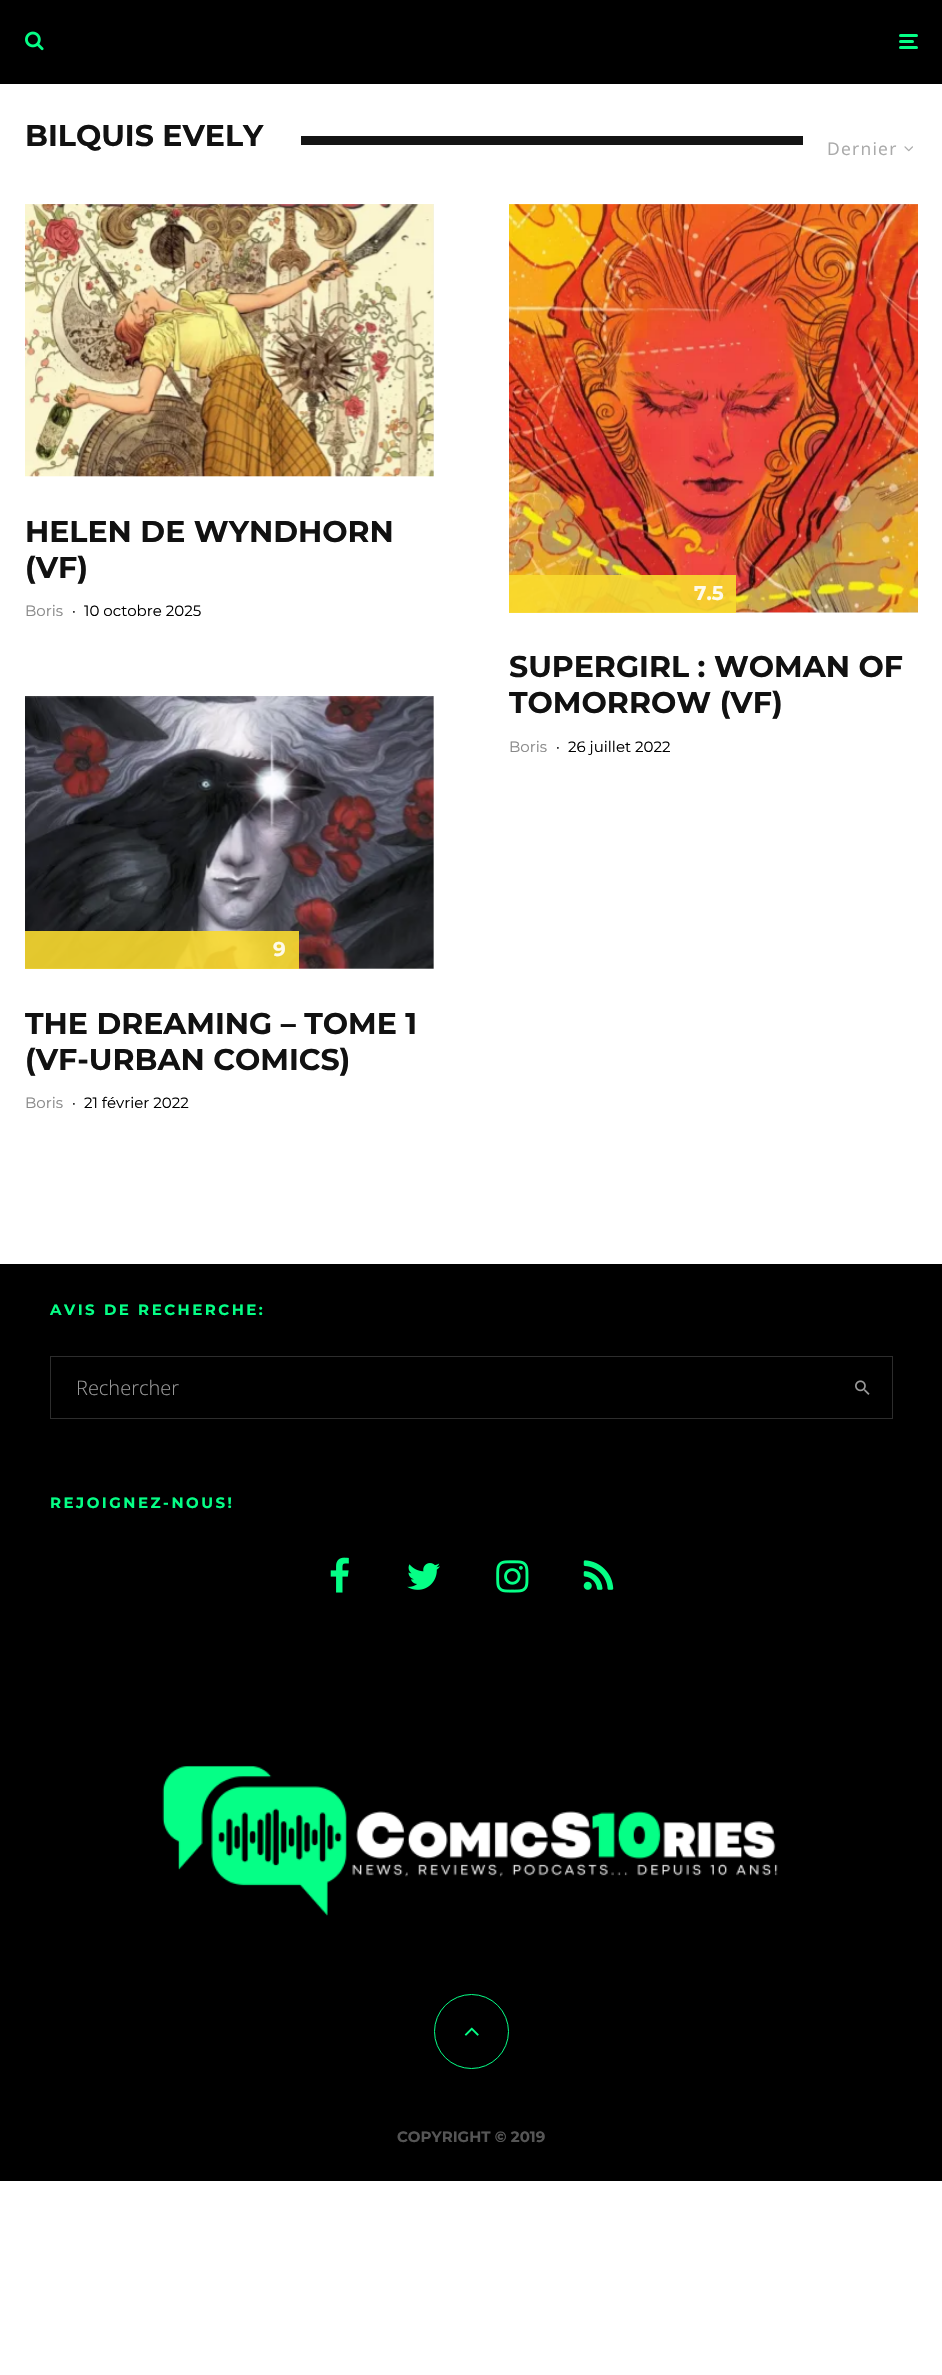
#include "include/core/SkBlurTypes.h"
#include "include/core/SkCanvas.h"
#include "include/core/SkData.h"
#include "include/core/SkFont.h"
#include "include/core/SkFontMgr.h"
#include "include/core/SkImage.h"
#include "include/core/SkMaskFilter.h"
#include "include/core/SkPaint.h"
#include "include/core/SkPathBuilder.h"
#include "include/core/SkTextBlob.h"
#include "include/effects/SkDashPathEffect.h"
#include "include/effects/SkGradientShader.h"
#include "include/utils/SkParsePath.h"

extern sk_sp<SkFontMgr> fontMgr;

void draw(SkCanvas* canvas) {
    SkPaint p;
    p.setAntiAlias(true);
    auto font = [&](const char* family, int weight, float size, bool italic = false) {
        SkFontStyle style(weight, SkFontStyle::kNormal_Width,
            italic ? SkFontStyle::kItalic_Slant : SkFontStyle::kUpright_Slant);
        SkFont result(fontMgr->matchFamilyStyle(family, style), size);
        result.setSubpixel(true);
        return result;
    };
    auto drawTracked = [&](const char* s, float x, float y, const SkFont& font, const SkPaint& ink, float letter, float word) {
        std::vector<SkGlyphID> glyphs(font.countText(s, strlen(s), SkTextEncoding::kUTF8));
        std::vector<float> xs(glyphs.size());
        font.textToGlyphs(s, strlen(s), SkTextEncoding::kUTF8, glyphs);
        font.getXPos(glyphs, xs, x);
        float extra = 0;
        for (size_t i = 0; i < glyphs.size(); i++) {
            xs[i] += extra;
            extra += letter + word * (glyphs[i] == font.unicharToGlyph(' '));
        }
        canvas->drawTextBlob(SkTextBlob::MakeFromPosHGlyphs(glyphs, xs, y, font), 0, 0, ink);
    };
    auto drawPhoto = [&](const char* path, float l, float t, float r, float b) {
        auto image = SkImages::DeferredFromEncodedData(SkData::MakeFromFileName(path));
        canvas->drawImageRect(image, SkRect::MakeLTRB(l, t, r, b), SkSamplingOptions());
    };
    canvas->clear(0xFFFFFFFF);
    p.setColor(0xFF000000);
    canvas->drawRect(SkRect::MakeLTRB(0, 0, 942, 84), p);
    drawPhoto("media/1.png", 25, 31, 44, 51);
    p.setColor(0xFF05FF86);
    canvas->drawRoundRect(SkRect::MakeLTRB(899, 40, 914, 43), 1.5f, 1.5f, p);
    canvas->drawRoundRect(SkRect::MakeLTRB(899, 34, 918, 37), 1.5f, 1.5f, p);
    canvas->drawRoundRect(SkRect::MakeLTRB(899, 46, 918, 49), 1.5f, 1.5f, p);
    auto font1 = font("Montserrat", 700, 30);
    p.setColor(0xFF111111);
    canvas->drawString("BILQUIS EVELY", 25, 146, font1, p);
    p.setColor(0xFF141414);
    canvas->drawRect(SkRect::MakeLTRB(301, 136, 803, 145), p);
    auto font2 = font("Open Sans", 400, 17.5f);
    p.setColor(0xFFAAAAAA);
    drawTracked("Dernier", 827, 155, font2, p, 1.25f, 0);
    drawPhoto("media/2.png", 904, 146, 913, 152);
    p.setColor(0xFFEEEEEE);
    canvas->drawRect(SkRect::MakeLTRB(25, 204, 434, 476), p);
    drawPhoto("media/3.png", 25, 204, 434, 477);
    p.setColor(0xFF111111);
    canvas->drawString("HELEN DE WYNDHORN", 25, 542, font1, p);
    canvas->drawString("(VF)", 25, 578, font1, p);
    auto font3 = font("Montserrat", 400, 15);
    p.setColor(0xFF888888);
    canvas->drawString("Boris", 25, 616, font3, p);
    p.setColor(0xFF000000);
    canvas->drawString("·", 72, 616, font3, p);
    canvas->drawString("10 octobre 2025", 84, 616, font3, p);
    p.setColor(0xFFEEEEEE);
    canvas->drawRect(SkRect::MakeLTRB(509, 204, 918, 613), p);
    drawPhoto("media/4.png", 509, 204, 918, 613);
    p.setColor(0xE6F8D92F);
    canvas->drawRect(SkRect::MakeLTRB(509, 575, 736, 613), p);
    auto font4 = font("Montserrat", 700, 20);
    p.setColor(0xFFFEFAEA);
    canvas->drawString("7.5", 694, 600, font4, p);
    p.setColor(0xFF111111);
    canvas->drawString("SUPERGIRL : WOMAN OF", 509, 677, font1, p);
    canvas->drawString("TOMORROW (VF)", 509, 713, font1, p);
    p.setColor(0xFF888888);
    canvas->drawString("Boris", 509, 752, font3, p);
    p.setColor(0xFF000000);
    canvas->drawString("·", 556, 752, font3, p);
    canvas->drawString("26 juillet 2022", 568, 752, font3, p);
    p.setColor(0xFFEEEEEE);
    canvas->drawRect(SkRect::MakeLTRB(25, 696, 434, 969), p);
    drawPhoto("media/5.png", 25, 696, 434, 969);
    p.setColor(0xE6F8D92F);
    canvas->drawRect(SkRect::MakeLTRB(25, 931, 299, 969), p);
    p.setColor(0xFFFEFAEA);
    canvas->drawString("9", 273, 956, font4, p);
    p.setColor(0xFF111111);
    canvas->drawString("THE DREAMING – TOME 1", 25, 1034, font1, p);
    canvas->drawString("(VF-URBAN COMICS)", 25, 1070, font1, p);
    p.setColor(0xFF888888);
    canvas->drawString("Boris", 25, 1108, font3, p);
    p.setColor(0xFF000000);
    canvas->drawString("·", 72, 1108, font3, p);
    canvas->drawString("21 février 2022", 84, 1108, font3, p);
    canvas->drawRect(SkRect::MakeLTRB(0, 1264, 942, 2181), p);
    auto font5 = font("Montserrat", 700, 15);
    p.setColor(0xFF05FF86);
    drawTracked("AVIS DE RECHERCHE:", 50, 1315, font5, p, 2.5f, 0);
    p.setStyle(SkPaint::kStroke_Style);
    p.setStrokeWidth(1);
    p.setColor(0xFF2D2D2D);
    canvas->drawRect(SkRect::MakeLTRB(50.5f, 1356.5f, 892.5f, 1418.5f), p);
    auto font6 = font("Open Sans", 300, 20);
    p.setStyle(SkPaint::kFill_Style);
    p.setColor(0xFF999999);
    canvas->drawString("Rechercher", 76, 1395, font6, p);
    drawPhoto("media/6.png", 855, 1380, 870, 1395);
    p.setColor(0xFF05FF86);
    drawTracked("REJOIGNEZ-NOUS!", 50, 1508, font5, p, 2.5f, 0);
    drawPhoto("media/7.png", 330, 1557, 349, 1593);
    drawPhoto("media/8.png", 407, 1563, 440, 1590);
    drawPhoto("media/9.png", 496, 1560, 529, 1593);
    drawPhoto("media/10.png", 583, 1560, 614, 1590);
    drawPhoto("media/11.png", 162, 1765, 778, 1916);
    p.setStyle(SkPaint::kStroke_Style);
    canvas->drawCircle(471.5f, 2031.5f, 37, p);
    drawPhoto("media/12.png", 464, 2027, 479, 2036);
    p.setStyle(SkPaint::kFill_Style);
    p.setColor(0xFF555555);
    canvas->drawString("COPYRIGHT © 2019", 397, 2142, font5, p);
}
